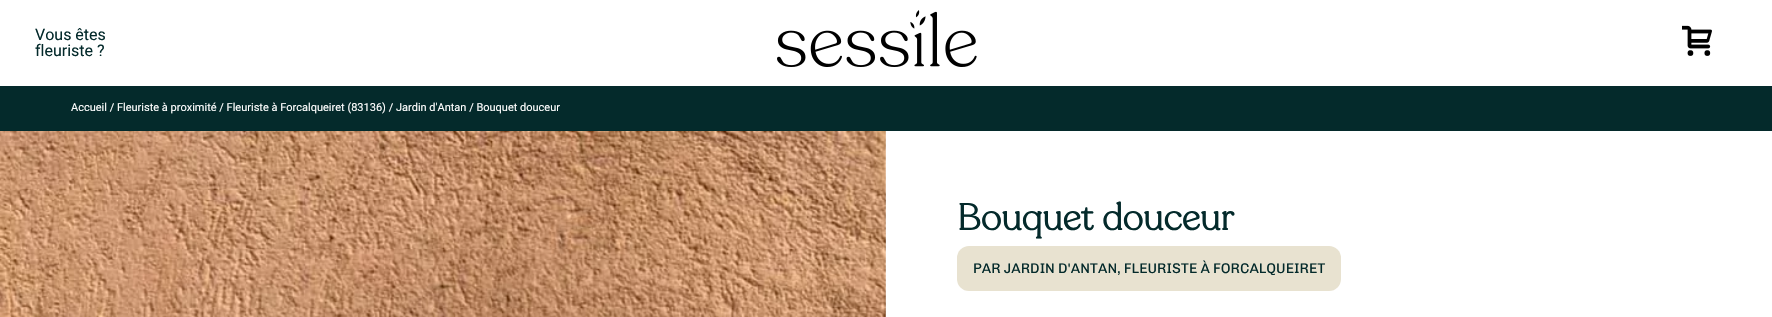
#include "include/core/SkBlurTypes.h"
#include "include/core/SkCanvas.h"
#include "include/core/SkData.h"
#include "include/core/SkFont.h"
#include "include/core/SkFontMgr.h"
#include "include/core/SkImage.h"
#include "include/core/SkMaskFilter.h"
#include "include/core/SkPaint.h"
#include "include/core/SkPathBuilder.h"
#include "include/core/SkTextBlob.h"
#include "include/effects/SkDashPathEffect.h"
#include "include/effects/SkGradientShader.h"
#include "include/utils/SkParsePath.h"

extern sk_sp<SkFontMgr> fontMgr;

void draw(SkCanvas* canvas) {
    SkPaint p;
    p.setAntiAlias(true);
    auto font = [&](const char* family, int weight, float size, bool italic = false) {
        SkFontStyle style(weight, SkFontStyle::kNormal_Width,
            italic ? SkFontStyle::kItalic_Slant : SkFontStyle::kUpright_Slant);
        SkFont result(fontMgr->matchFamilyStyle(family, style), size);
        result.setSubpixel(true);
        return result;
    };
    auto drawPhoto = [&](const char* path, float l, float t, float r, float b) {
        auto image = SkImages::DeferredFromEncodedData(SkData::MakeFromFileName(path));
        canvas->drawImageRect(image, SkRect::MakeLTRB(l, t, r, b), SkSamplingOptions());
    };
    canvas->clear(0xFFFFFFFF);
    auto font1 = font("Roboto", 400, 16);
    p.setColor(0xFF042A2B);
    canvas->drawString("Vous êtes", 35, 40, font1, p);
    canvas->drawString("fleuriste ?", 35, 56, font1, p);
    drawPhoto("media/1.png", 777, 10, 977, 67);
    drawPhoto("media/2.png", 1682, 25, 1712, 56);
    canvas->drawRect(SkRect::MakeLTRB(0, 86, 1772, 131), p);
    auto font2 = font("Roboto", 400, 11);
    p.setColor(0xFFFFFFFF);
    canvas->drawString("Accueil / Fleuriste à proximité / Fleuriste à Forcalqueiret (83136) / Jardin d'Antan / Bouquet douceur", 71, 111, font2, p);
    drawPhoto("media/3.png", 0, 131, 886, 317);
    auto font3 = font("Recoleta", 700, 36.75f);
    p.setColor(0xFF042A2B);
    canvas->drawString("Bouquet douceur", 957, 230, font3, p);
    p.setColor(0xFFE8E2D0);
    canvas->drawRoundRect(SkRect::MakeLTRB(957, 246, 1341, 291), 12, 12, p);
    auto font4 = font("Chivo", 500, 14);
    p.setColor(0xFF042A2B);
    canvas->drawString("PAR JARDIN D'ANTAN, FLEURISTE À FORCALQUEIRET", 973, 273, font4, p);
}
